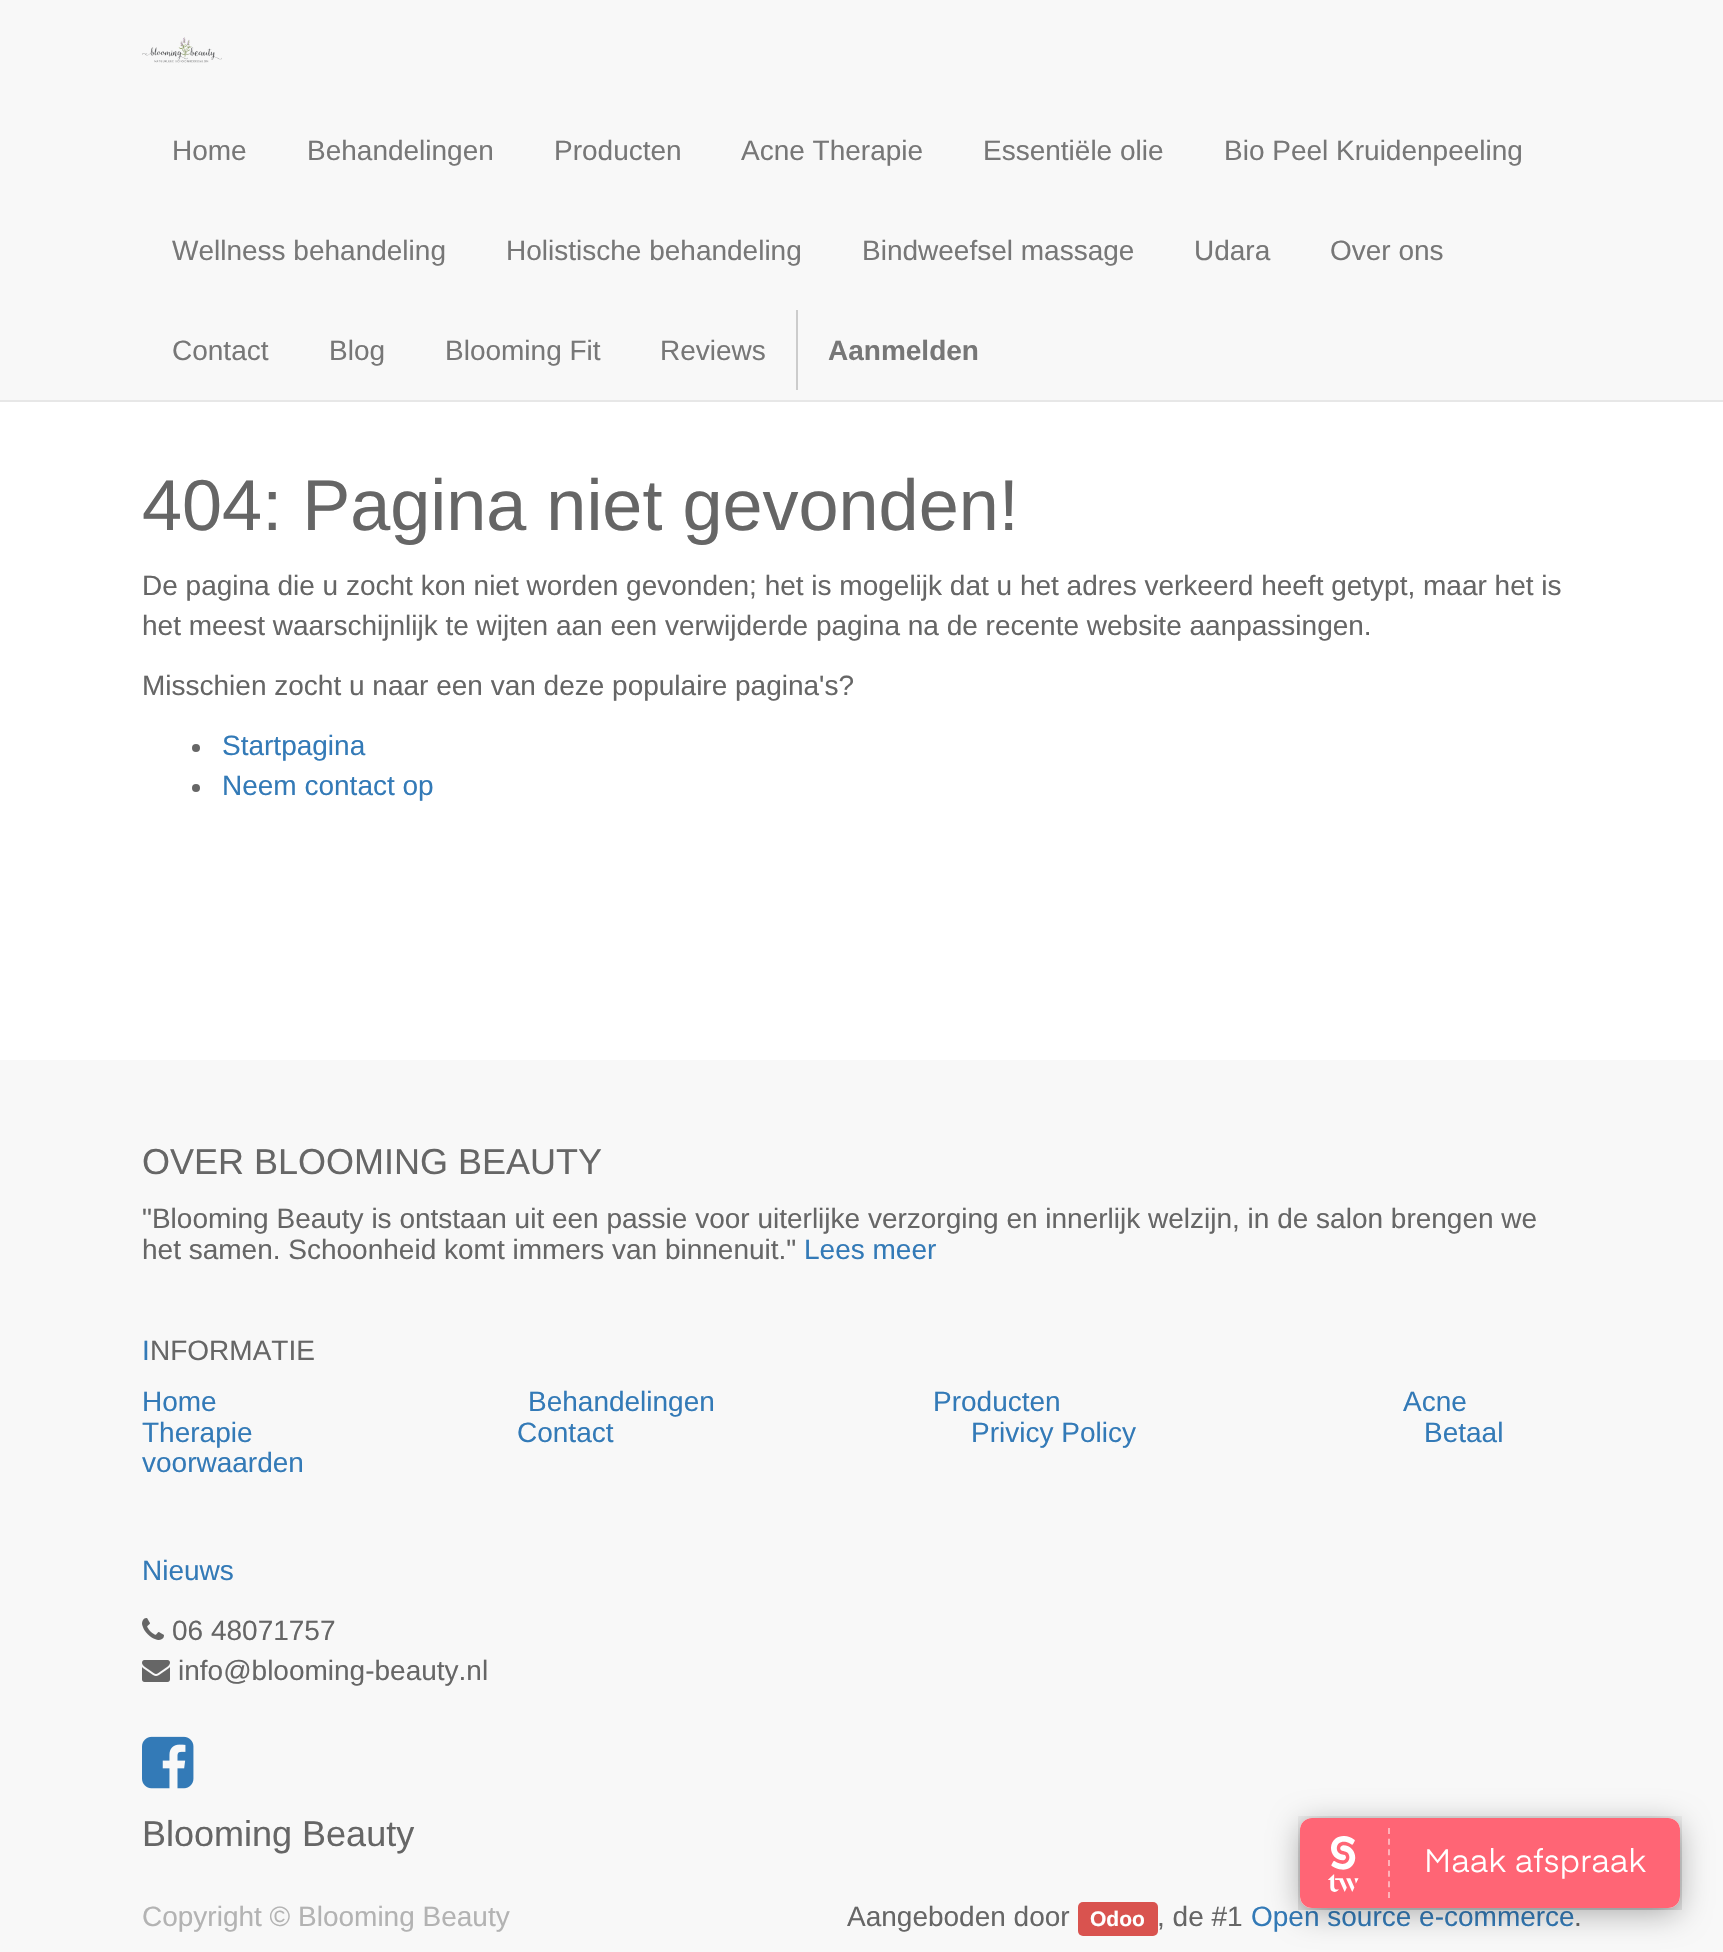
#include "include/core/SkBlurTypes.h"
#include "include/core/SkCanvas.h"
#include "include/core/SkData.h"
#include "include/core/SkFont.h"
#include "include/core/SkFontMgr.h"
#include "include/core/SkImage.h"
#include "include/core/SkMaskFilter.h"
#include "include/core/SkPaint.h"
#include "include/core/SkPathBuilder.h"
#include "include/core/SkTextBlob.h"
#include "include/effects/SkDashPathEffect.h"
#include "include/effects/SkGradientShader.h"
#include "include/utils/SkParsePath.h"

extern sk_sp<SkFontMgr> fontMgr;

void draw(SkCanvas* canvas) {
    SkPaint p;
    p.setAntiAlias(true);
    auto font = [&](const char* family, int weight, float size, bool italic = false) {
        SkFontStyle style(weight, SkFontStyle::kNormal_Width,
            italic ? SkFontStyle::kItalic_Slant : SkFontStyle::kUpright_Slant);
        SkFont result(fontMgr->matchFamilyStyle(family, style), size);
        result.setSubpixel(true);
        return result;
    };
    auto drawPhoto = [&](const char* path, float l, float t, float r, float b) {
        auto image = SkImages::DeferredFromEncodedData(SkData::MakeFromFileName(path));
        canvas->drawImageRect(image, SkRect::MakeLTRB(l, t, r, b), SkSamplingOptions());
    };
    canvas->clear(0xFFFFFFFF);
    p.setColor(0xFFF8F8F8);
    canvas->drawRect(SkRect::MakeLTRB(0, 0, 1723, 400), p);
    p.setColor(0xFFE7E7E7);
    canvas->drawRect(SkRect::MakeLTRB(0, 400, 1723, 402), p);
    drawPhoto("media/1.png", 142, 37, 222, 63);
    auto font1 = font("Liberation Sans", 400, 28);
    p.setColor(0xFF777777);
    {
        const struct { const char* s; float x, y; } items[] = {
            {"Home", 172, 160},
            {"Behandelingen", 307, 160},
            {"Producten", 554, 160},
            {"Acne Therapie", 741, 160},
            {"Essentiële olie", 983, 160},
            {"Bio Peel Kruidenpeeling", 1224, 160},
            {"Wellness behandeling", 172, 260},
            {"Holistische behandeling", 506, 260},
            {"Bindweefsel massage", 862, 260},
            {"Udara", 1194, 260},
            {"Over ons", 1330, 260},
            {"Contact", 172, 360},
            {"Blog", 329, 360},
            {"Blooming Fit", 445, 360},
            {"Reviews", 660, 360},
        };
        for (auto [s, x, y] : items) {
            canvas->drawString(s, x, y, font1, p);
        }
    }
    p.setColor(0xFFCCCCCC);
    canvas->drawRect(SkRect::MakeLTRB(796, 310, 798, 390), p);
    auto font2 = font("Liberation Sans", 700, 28);
    p.setColor(0xFF777777);
    canvas->drawString("Aanmelden", 828, 360, font2, p);
    auto font3 = font("Liberation Sans", 400, 72);
    p.setColor(0xFF666666);
    canvas->drawString("404: Pagina niet gevonden!", 142, 530, font3, p);
    {
        const struct { const char* s; float x, y; } items[] = {
            {"De pagina die u zocht kon niet worden gevonden; het is mogelijk dat u het adres verkeerd heeft getypt, maar het is", 142, 595},
            {"het meest waarschijnlijk te wijten aan een verwijderde pagina na de recente website aanpassingen.", 142, 635},
            {"Misschien zocht u naar een van deze populaire pagina's?", 142, 695},
        };
        for (auto [s, x, y] : items) {
            canvas->drawString(s, x, y, font1, p);
        }
    }
    canvas->drawCircle(196, 748, 4, p);
    p.setColor(0xFF337AB7);
    canvas->drawString("Startpagina", 222, 755, font1, p);
    p.setColor(0xFF666666);
    canvas->drawCircle(196, 788, 4, p);
    p.setColor(0xFF337AB7);
    canvas->drawString("Neem contact op", 222, 795, font1, p);
    p.setColor(0xFFF8F8F8);
    canvas->drawRect(SkRect::MakeLTRB(0, 1060, 1723, 1952), p);
    auto font4 = font("Liberation Sans", 400, 36);
    p.setColor(0xFF666666);
    canvas->drawString("OVER BLOOMING BEAUTY", 142, 1174, font4, p);
    canvas->drawString("\"Blooming Beauty is ontstaan uit een passie voor uiterlijke verzorging en innerlijk welzijn, in de salon brengen we", 142, 1228, font1, p);
    canvas->drawString("het samen. Schoonheid komt immers van binnenuit.\"", 142, 1259, font1, p);
    p.setColor(0xFF337AB7);
    canvas->drawString("Lees meer", 804, 1259, font1, p);
    canvas->drawString("I", 142, 1360, font1, p);
    p.setColor(0xFF666666);
    canvas->drawString("NFORMATIE", 150, 1360, font1, p);
    p.setColor(0xFF337AB7);
    {
        const struct { const char* s; float x, y; } items[] = {
            {"Home", 142, 1411},
            {"Behandelingen", 528, 1411},
            {"Producten", 933, 1411},
            {"Acne", 1403, 1411},
            {"Therapie", 142, 1442},
            {"Contact", 517, 1442},
            {"Privicy Policy", 971, 1442},
            {"Betaal", 1424, 1442},
            {"voorwaarden", 142, 1472},
            {"Nieuws", 142, 1580},
        };
        for (auto [s, x, y] : items) {
            canvas->drawString(s, x, y, font1, p);
        }
    }
    drawPhoto("media/2.png", 142, 1618, 164, 1640);
    p.setColor(0xFF666666);
    canvas->drawString("06 48071757", 172, 1640, font1, p);
    drawPhoto("media/3.png", 142, 1660, 170, 1682);
    canvas->drawString("info@blooming-beauty.nl", 178, 1680, font1, p);
    drawPhoto("media/4.png", 142, 1736, 194, 1789);
    canvas->drawString("Blooming Beauty", 142, 1846, font4, p);
    p.setColor(0xFFB3B3B3);
    canvas->drawString("Copyright © Blooming Beauty", 142, 1926, font1, p);
    p.setColor(0xFF666666);
    canvas->drawString("Aangeboden door", 847, 1926, font1, p);
    p.setColor(0xFFD9534F);
    canvas->drawRoundRect(SkRect::MakeLTRB(1078, 1902, 1158, 1936), 5, 5, p);
    auto font5 = font("Liberation Sans", 700, 21);
    p.setColor(0xFFFFFFFF);
    canvas->drawString("Odoo", 1090, 1926, font5, p);
    p.setColor(0xFF666666);
    canvas->drawString(", de #1", 1157, 1926, font1, p);
    p.setColor(0xFF337AB7);
    canvas->drawString("Open source e-commerce", 1251, 1926, font1, p);
    p.setColor(0xFF666666);
    canvas->drawString(".", 1574, 1926, font1, p);
    p.setColor(0x4D000000);
    p.setMaskFilter(SkMaskFilter::MakeBlur(kNormal_SkBlurStyle, 15));
    canvas->drawRoundRect(SkRect::MakeLTRB(1300, 1824, 1680, 1914), 12, 12, p);
    p.setMaskFilter(nullptr);
    drawPhoto("media/5.png", 1298, 1816, 1682, 1910);
}
